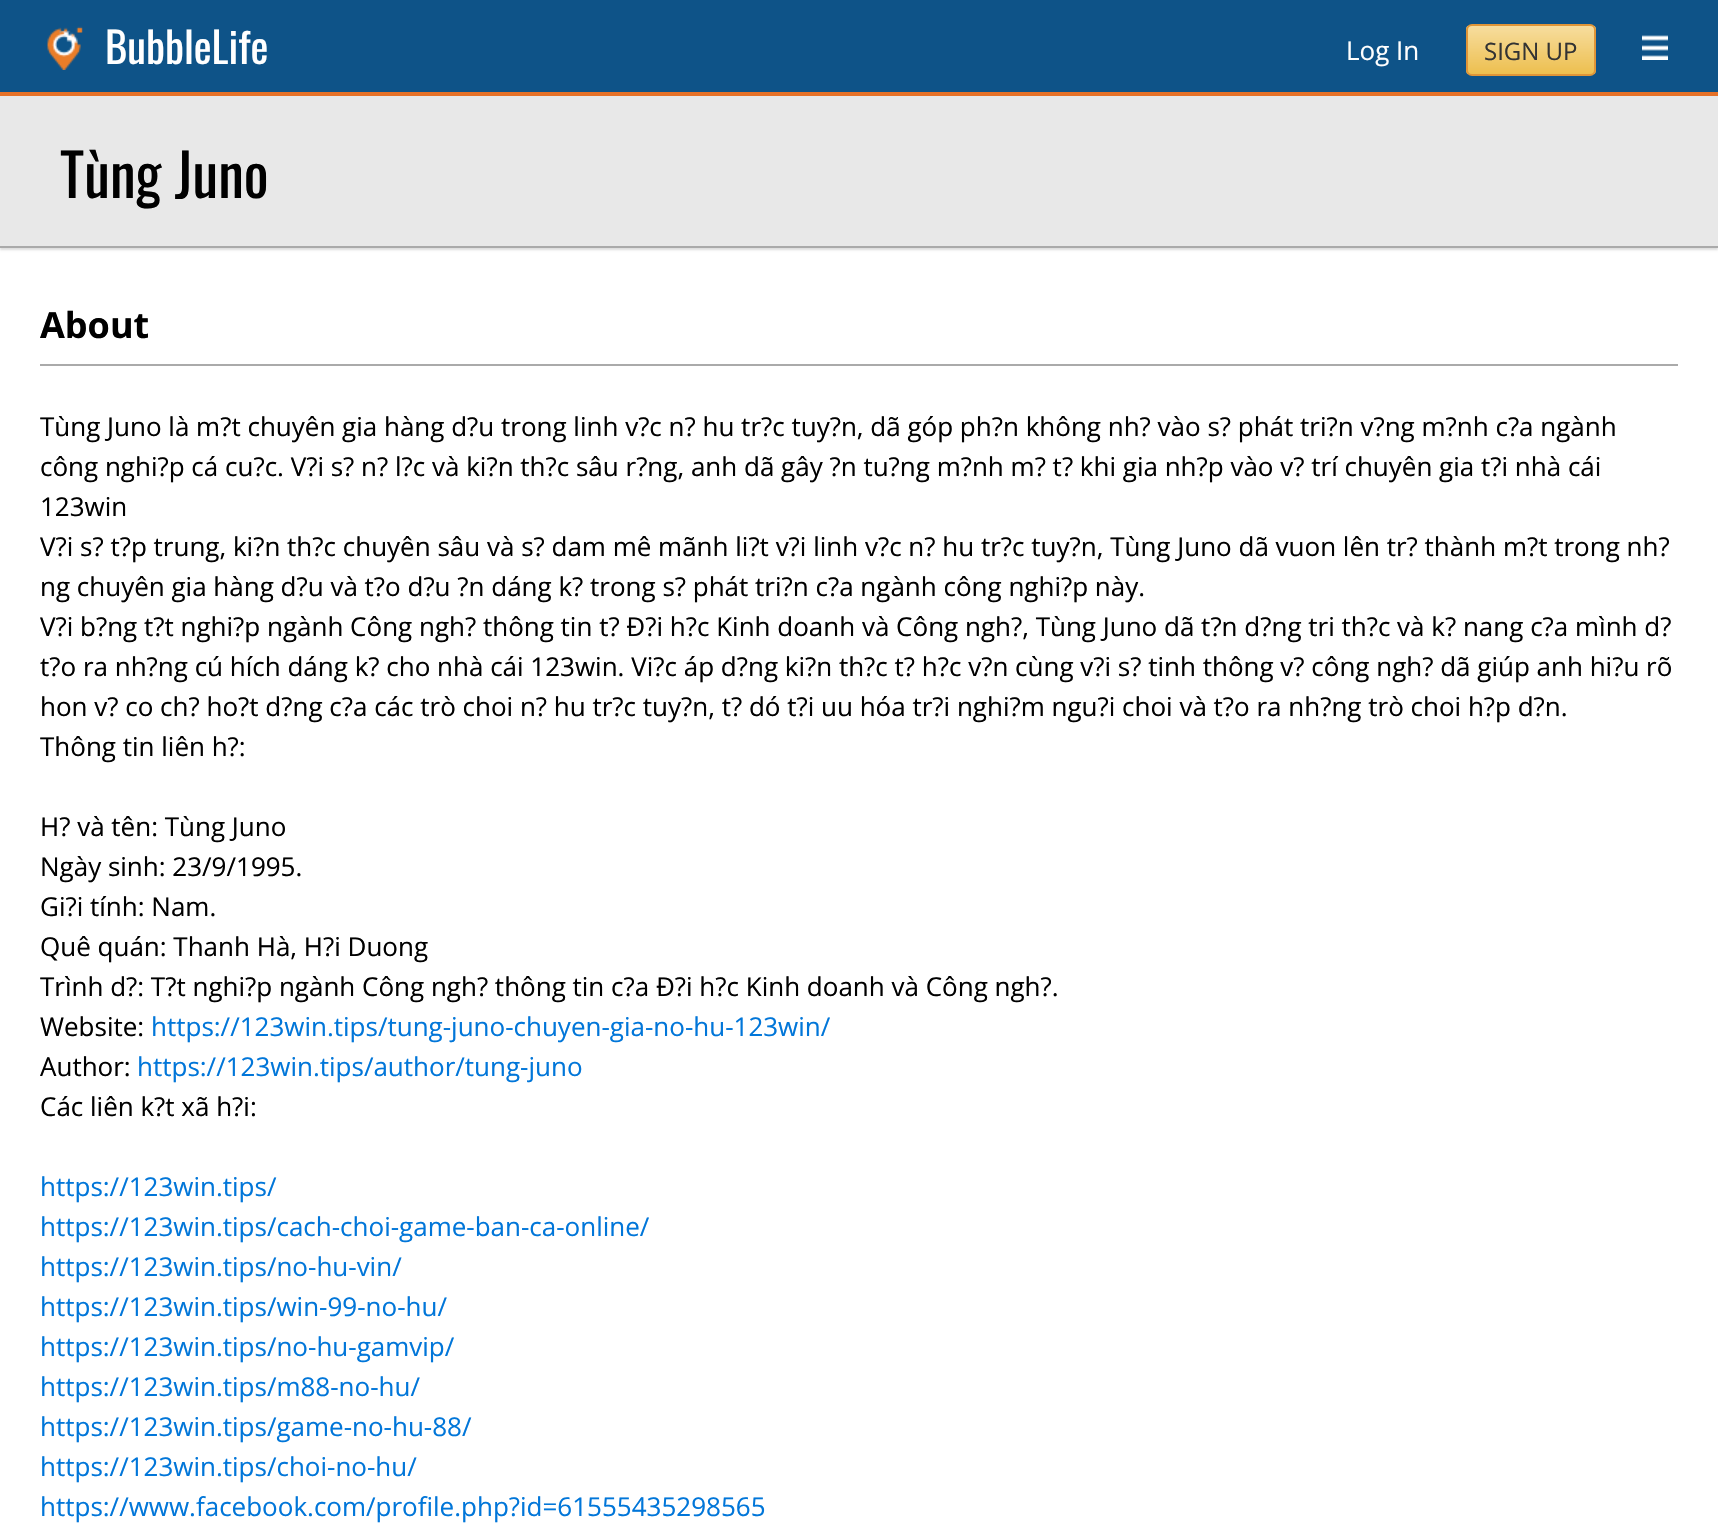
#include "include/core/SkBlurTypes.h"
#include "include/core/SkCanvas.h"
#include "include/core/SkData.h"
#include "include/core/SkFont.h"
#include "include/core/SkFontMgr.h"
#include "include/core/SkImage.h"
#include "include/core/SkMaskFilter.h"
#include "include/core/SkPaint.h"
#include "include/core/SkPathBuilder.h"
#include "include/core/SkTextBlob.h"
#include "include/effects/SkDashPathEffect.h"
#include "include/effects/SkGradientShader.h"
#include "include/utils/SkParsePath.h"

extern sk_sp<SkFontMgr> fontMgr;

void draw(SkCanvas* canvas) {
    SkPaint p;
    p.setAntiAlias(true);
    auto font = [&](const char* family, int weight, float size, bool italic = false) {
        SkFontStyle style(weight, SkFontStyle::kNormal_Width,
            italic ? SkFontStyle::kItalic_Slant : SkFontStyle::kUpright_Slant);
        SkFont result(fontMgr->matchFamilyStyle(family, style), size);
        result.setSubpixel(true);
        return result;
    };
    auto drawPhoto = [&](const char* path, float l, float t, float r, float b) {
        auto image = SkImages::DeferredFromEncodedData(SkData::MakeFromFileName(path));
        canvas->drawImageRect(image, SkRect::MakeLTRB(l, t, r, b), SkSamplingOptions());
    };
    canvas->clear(0xFFFFFFFF);
    p.setColor(0xFF0E5388);
    canvas->drawRect(SkRect::MakeLTRB(0, 0, 1718, 92), p);
    p.setColor(0xFFE67127);
    canvas->drawRect(SkRect::MakeLTRB(0, 92, 1718, 96), p);
    drawPhoto("media/1.png", 47, 26, 83, 70);
    auto font1 = font("Oswald", 400, 42.5f);
    p.setColor(0xFFFFFFFF);
    canvas->drawString("BubbleLife", 105, 64, font1, p);
    auto font2 = font("Open Sans", 400, 26);
    canvas->drawString("Log In", 1346, 60, font2, p);
    canvas->save();
    canvas->clipPath(SkPathBuilder().moveTo(1472, 24).lineTo(1590, 24).cubicTo(1593.5f, 24, 1596, 26.5f, 1596, 30).lineTo(1596, 70).cubicTo(1596, 73.5f, 1593.5f, 76, 1590, 76).lineTo(1472, 76).cubicTo(1468.5f, 76, 1466, 73.5f, 1466, 70).lineTo(1466, 30).cubicTo(1466, 26.5f, 1468.5f, 24, 1472, 24).close().detach(), true);
    {
        const SkColor colors[] = {0xFFF7DD9E, 0xFFEDBF4F};
        const float stops[] = {0, 1};
        const SkPoint ends[] = {{1531, 26}, {1531, 74}};
        p.setShader(SkGradientShader::MakeLinear(ends, colors, stops, 2, SkTileMode::kClamp));
        p.setAlpha(255);
    }
    canvas->drawRect(SkRect::MakeLTRB(1466, 26, 1596, 74), p);
    canvas->restore();
    p.setStyle(SkPaint::kStroke_Style);
    p.setStrokeWidth(2);
    p.setShader(nullptr);
    p.setColor(0xFFDF9538);
    canvas->drawRoundRect(SkRect::MakeLTRB(1467, 25, 1595, 75), 5, 5, p);
    auto font3 = font("Open Sans", 400, 24);
    p.setStyle(SkPaint::kFill_Style);
    p.setColor(0xFF333333);
    canvas->drawString("SIGN UP", 1484, 60, font3, p);
    drawPhoto("media/2.png", 1642, 35, 1668, 60);
    p.setColor(0xFFDDDDDD);
    p.setMaskFilter(SkMaskFilter::MakeBlur(kNormal_SkBlurStyle, 1));
    canvas->drawRect(SkRect::MakeLTRB(0, 98, 1718, 250), p);
    p.setMaskFilter(nullptr);
    p.setColor(0xFFE8E8E8);
    canvas->drawRect(SkRect::MakeLTRB(0, 96, 1718, 246), p);
    p.setColor(0xFFAAAAAA);
    canvas->drawRect(SkRect::MakeLTRB(0, 246, 1718, 248), p);
    auto font4 = font("Oswald", 400, 58.5f);
    p.setColor(0xFF000000);
    canvas->drawString("Tùng Juno", 60, 198, font4, p);
    p.setColor(0xFFAAAAAA);
    canvas->drawRect(SkRect::MakeLTRB(40, 364, 1678, 366), p);
    auto font5 = font("Open Sans", 700, 36);
    p.setColor(0xFF000000);
    canvas->drawString("About", 40, 338, font5, p);
    {
        const struct { const char* s; float x, y; } items[] = {
            {"Tùng Juno là m?t chuyên gia hàng d?u trong linh v?c n? hu tr?c tuy?n, dã góp ph?n không nh? vào s? phát tri?n v?ng m?nh c?a ngành", 40, 436},
            {"công nghi?p cá cu?c. V?i s? n? l?c và ki?n th?c sâu r?ng, anh dã gây ?n tu?ng m?nh m? t? khi gia nh?p vào v? trí chuyên gia t?i nhà cái", 40, 476},
            {"123win", 40, 516},
            {"V?i s? t?p trung, ki?n th?c chuyên sâu và s? dam mê mãnh li?t v?i linh v?c n? hu tr?c tuy?n, Tùng Juno dã vuon lên tr? thành m?t trong nh?", 40, 556},
            {"ng chuyên gia hàng d?u và t?o d?u ?n dáng k? trong s? phát tri?n c?a ngành công nghi?p này.", 40, 596},
            {"V?i b?ng t?t nghi?p ngành Công ngh? thông tin t? Ð?i h?c Kinh doanh và Công ngh?, Tùng Juno dã t?n d?ng tri th?c và k? nang c?a mình d?", 40, 636},
            {"t?o ra nh?ng cú hích dáng k? cho nhà cái 123win. Vi?c áp d?ng ki?n th?c t? h?c v?n cùng v?i s? tinh thông v? công ngh? dã giúp anh hi?u rõ", 40, 676},
            {"hon v? co ch? ho?t d?ng c?a các trò choi n? hu tr?c tuy?n, t? dó t?i uu hóa tr?i nghi?m ngu?i choi và t?o ra nh?ng trò choi h?p d?n.", 40, 716},
            {"Thông tin liên h?:", 40, 756},
            {"H? và tên: Tùng Juno", 40, 836},
            {"Ngày sinh: 23/9/1995.", 40, 876},
            {"Gi?i tính: Nam.", 40, 916},
            {"Quê quán: Thanh Hà, H?i Duong", 40, 956},
            {"Trình d?: T?t nghi?p ngành Công ngh? thông tin c?a Ð?i h?c Kinh doanh và Công ngh?.", 40, 996},
            {"Website:", 40, 1036},
        };
        for (auto [s, x, y] : items) {
            canvas->drawString(s, x, y, font2, p);
        }
    }
    p.setColor(0xFF0176D9);
    canvas->drawString("https://123win.tips/tung-juno-chuyen-gia-no-hu-123win/", 151, 1036, font2, p);
    p.setColor(0xFF000000);
    canvas->drawString("Author:", 40, 1076, font2, p);
    p.setColor(0xFF0176D9);
    canvas->drawString("https://123win.tips/author/tung-juno", 137, 1076, font2, p);
    p.setColor(0xFF000000);
    canvas->drawString("Các liên k?t xã h?i:", 40, 1116, font2, p);
    p.setColor(0xFF0176D9);
    {
        const struct { const char* s; float x, y; } items[] = {
            {"https://123win.tips/", 40, 1196},
            {"https://123win.tips/cach-choi-game-ban-ca-online/", 40, 1236},
            {"https://123win.tips/no-hu-vin/", 40, 1276},
            {"https://123win.tips/win-99-no-hu/", 40, 1316},
            {"https://123win.tips/no-hu-gamvip/", 40, 1356},
            {"https://123win.tips/m88-no-hu/", 40, 1396},
            {"https://123win.tips/game-no-hu-88/", 40, 1436},
            {"https://123win.tips/choi-no-hu/", 40, 1476},
            {"https://www.facebook.com/profile.php?id=61555435298565", 40, 1516},
        };
        for (auto [s, x, y] : items) {
            canvas->drawString(s, x, y, font2, p);
        }
    }
}
